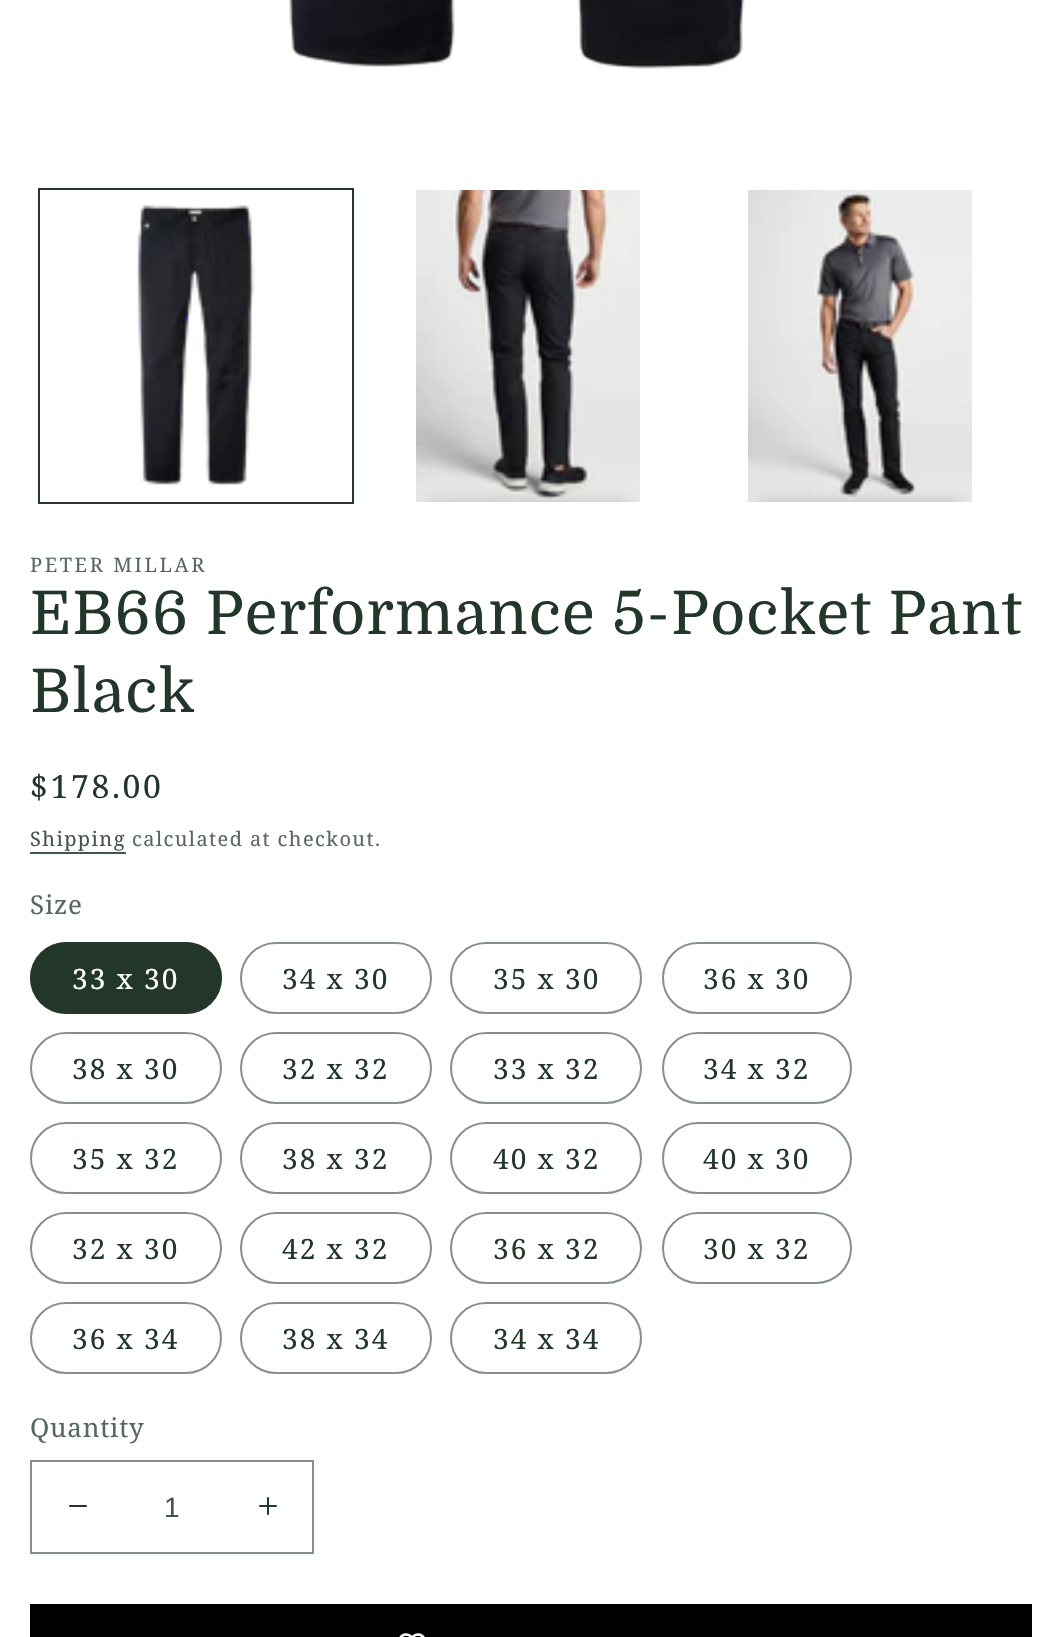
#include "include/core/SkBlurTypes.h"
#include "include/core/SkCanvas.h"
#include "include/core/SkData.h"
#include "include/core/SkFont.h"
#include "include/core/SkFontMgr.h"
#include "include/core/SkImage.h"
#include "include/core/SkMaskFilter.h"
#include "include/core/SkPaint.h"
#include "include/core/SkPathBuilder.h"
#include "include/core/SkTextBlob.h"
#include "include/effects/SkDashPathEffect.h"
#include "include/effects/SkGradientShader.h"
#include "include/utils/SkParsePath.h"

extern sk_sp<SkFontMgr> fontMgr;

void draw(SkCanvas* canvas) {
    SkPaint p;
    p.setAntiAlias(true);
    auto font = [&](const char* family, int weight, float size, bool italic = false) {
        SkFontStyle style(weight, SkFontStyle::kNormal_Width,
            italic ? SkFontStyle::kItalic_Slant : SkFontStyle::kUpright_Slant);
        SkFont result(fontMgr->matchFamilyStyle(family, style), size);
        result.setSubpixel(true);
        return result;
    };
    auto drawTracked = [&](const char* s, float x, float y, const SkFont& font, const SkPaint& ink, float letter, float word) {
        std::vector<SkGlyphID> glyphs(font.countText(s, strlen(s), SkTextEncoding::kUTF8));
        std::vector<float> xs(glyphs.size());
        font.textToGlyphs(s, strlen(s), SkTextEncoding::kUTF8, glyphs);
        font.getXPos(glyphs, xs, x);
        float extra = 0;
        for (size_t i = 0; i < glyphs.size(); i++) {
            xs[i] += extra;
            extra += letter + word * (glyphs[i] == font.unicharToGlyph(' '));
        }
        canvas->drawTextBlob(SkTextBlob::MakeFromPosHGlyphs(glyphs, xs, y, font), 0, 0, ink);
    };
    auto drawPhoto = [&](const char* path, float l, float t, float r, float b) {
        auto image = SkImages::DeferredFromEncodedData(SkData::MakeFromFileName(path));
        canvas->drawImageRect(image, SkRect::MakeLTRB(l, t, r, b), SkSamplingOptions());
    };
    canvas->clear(0xFFFFFFFF);
    drawPhoto("media/1.png", 289, 0, 745, 69);
    p.setStyle(SkPaint::kStroke_Style);
    p.setStrokeWidth(2);
    p.setColor(0xFF223629);
    canvas->drawRect(SkRect::MakeLTRB(39, 189, 353, 503), p);
    drawPhoto("media/2.png", 137, 205, 255, 486);
    drawPhoto("media/3.png", 416, 190, 640, 502);
    drawPhoto("media/4.png", 748, 190, 972, 502);
    auto font1 = font("Noto Serif", 400, 20);
    p.setStyle(SkPaint::kFill_Style);
    p.setColor(0xFF59685F);
    drawTracked("PETER MILLAR", 30, 572, font1, p, 2.6f, 0);
    auto font2 = font("Domine", 400, 60);
    p.setColor(0xFF223629);
    drawTracked("EB66 Performance 5-Pocket Pant", 30, 634, font2, p, 1.2f, 0);
    drawTracked("Black", 30, 712, font2, p, 1.2f, 0);
    auto font3 = font("Noto Serif", 400, 32);
    drawTracked("$178.00", 30, 798, font3, p, 2.6f, 0);
    p.setColor(0xFF435449);
    drawTracked("Shipping", 30, 846, font1, p, 1.4f, 0);
    canvas->drawRect(SkRect::MakeLTRB(30, 852, 126, 854), p);
    p.setColor(0xFF59685F);
    drawTracked("calculated at checkout.", 132, 846, font1, p, 1.4f, 0);
    auto font4 = font("Noto Serif", 400, 26);
    drawTracked("Size", 30, 914, font4, p, 0.75f, 0);
    p.setColor(0xFF223629);
    canvas->drawRoundRect(SkRect::MakeLTRB(30, 942, 222, 1014), 36, 36, p);
    p.setStyle(SkPaint::kStroke_Style);
    p.setColor(0x8C223629);
    canvas->drawRoundRect(SkRect::MakeLTRB(31, 943, 221, 1013), 35, 35, p);
    auto font5 = font("Noto Serif", 400, 28);
    p.setStyle(SkPaint::kFill_Style);
    p.setColor(0xFFFFFFFF);
    drawTracked("33 x 30", 72, 989, font5, p, 2, 0);
    p.setStyle(SkPaint::kStroke_Style);
    p.setColor(0xFF859089);
    canvas->drawRoundRect(SkRect::MakeLTRB(241, 943, 431, 1013), 35, 35, p);
    p.setStyle(SkPaint::kFill_Style);
    p.setColor(0xFF223629);
    drawTracked("34 x 30", 282, 989, font5, p, 2, 0);
    p.setStyle(SkPaint::kStroke_Style);
    p.setColor(0xFF859089);
    canvas->drawRoundRect(SkRect::MakeLTRB(451, 943, 641, 1013), 35, 35, p);
    p.setStyle(SkPaint::kFill_Style);
    p.setColor(0xFF223629);
    drawTracked("35 x 30", 493, 989, font5, p, 2, 0);
    p.setStyle(SkPaint::kStroke_Style);
    p.setColor(0xFF859089);
    canvas->drawRoundRect(SkRect::MakeLTRB(663, 943, 851, 1013), 35, 35, p);
    p.setStyle(SkPaint::kFill_Style);
    p.setColor(0xFF223629);
    drawTracked("36 x 30", 703, 989, font5, p, 2, 0);
    p.setStyle(SkPaint::kStroke_Style);
    p.setColor(0xFF859089);
    canvas->drawRoundRect(SkRect::MakeLTRB(31, 1033, 221, 1103), 35, 35, p);
    p.setStyle(SkPaint::kFill_Style);
    p.setColor(0xFF223629);
    drawTracked("38 x 30", 72, 1079, font5, p, 2, 0);
    p.setStyle(SkPaint::kStroke_Style);
    p.setColor(0xFF859089);
    canvas->drawRoundRect(SkRect::MakeLTRB(241, 1033, 431, 1103), 35, 35, p);
    p.setStyle(SkPaint::kFill_Style);
    p.setColor(0xFF223629);
    drawTracked("32 x 32", 282, 1079, font5, p, 2, 0);
    p.setStyle(SkPaint::kStroke_Style);
    p.setColor(0xFF859089);
    canvas->drawRoundRect(SkRect::MakeLTRB(451, 1033, 641, 1103), 35, 35, p);
    p.setStyle(SkPaint::kFill_Style);
    p.setColor(0xFF223629);
    drawTracked("33 x 32", 493, 1079, font5, p, 2, 0);
    p.setStyle(SkPaint::kStroke_Style);
    p.setColor(0xFF859089);
    canvas->drawRoundRect(SkRect::MakeLTRB(663, 1033, 851, 1103), 35, 35, p);
    p.setStyle(SkPaint::kFill_Style);
    p.setColor(0xFF223629);
    drawTracked("34 x 32", 703, 1079, font5, p, 2, 0);
    p.setStyle(SkPaint::kStroke_Style);
    p.setColor(0xFF859089);
    canvas->drawRoundRect(SkRect::MakeLTRB(31, 1123, 221, 1193), 35, 35, p);
    p.setStyle(SkPaint::kFill_Style);
    p.setColor(0xFF223629);
    drawTracked("35 x 32", 72, 1169, font5, p, 2, 0);
    p.setStyle(SkPaint::kStroke_Style);
    p.setColor(0xFF859089);
    canvas->drawRoundRect(SkRect::MakeLTRB(241, 1123, 431, 1193), 35, 35, p);
    p.setStyle(SkPaint::kFill_Style);
    p.setColor(0xFF223629);
    drawTracked("38 x 32", 282, 1169, font5, p, 2, 0);
    p.setStyle(SkPaint::kStroke_Style);
    p.setColor(0xFF859089);
    canvas->drawRoundRect(SkRect::MakeLTRB(451, 1123, 641, 1193), 35, 35, p);
    p.setStyle(SkPaint::kFill_Style);
    p.setColor(0xFF223629);
    drawTracked("40 x 32", 493, 1169, font5, p, 2, 0);
    p.setStyle(SkPaint::kStroke_Style);
    p.setColor(0xFF859089);
    canvas->drawRoundRect(SkRect::MakeLTRB(663, 1123, 851, 1193), 35, 35, p);
    p.setStyle(SkPaint::kFill_Style);
    p.setColor(0xFF223629);
    drawTracked("40 x 30", 703, 1169, font5, p, 2, 0);
    p.setStyle(SkPaint::kStroke_Style);
    p.setColor(0xFF859089);
    canvas->drawRoundRect(SkRect::MakeLTRB(31, 1213, 221, 1283), 35, 35, p);
    p.setStyle(SkPaint::kFill_Style);
    p.setColor(0xFF223629);
    drawTracked("32 x 30", 72, 1259, font5, p, 2, 0);
    p.setStyle(SkPaint::kStroke_Style);
    p.setColor(0xFF859089);
    canvas->drawRoundRect(SkRect::MakeLTRB(241, 1213, 431, 1283), 35, 35, p);
    p.setStyle(SkPaint::kFill_Style);
    p.setColor(0xFF223629);
    drawTracked("42 x 32", 282, 1259, font5, p, 2, 0);
    p.setStyle(SkPaint::kStroke_Style);
    p.setColor(0xFF859089);
    canvas->drawRoundRect(SkRect::MakeLTRB(451, 1213, 641, 1283), 35, 35, p);
    p.setStyle(SkPaint::kFill_Style);
    p.setColor(0xFF223629);
    drawTracked("36 x 32", 493, 1259, font5, p, 2, 0);
    p.setStyle(SkPaint::kStroke_Style);
    p.setColor(0xFF859089);
    canvas->drawRoundRect(SkRect::MakeLTRB(663, 1213, 851, 1283), 35, 35, p);
    p.setStyle(SkPaint::kFill_Style);
    p.setColor(0xFF223629);
    drawTracked("30 x 32", 703, 1259, font5, p, 2, 0);
    p.setStyle(SkPaint::kStroke_Style);
    p.setColor(0xFF859089);
    canvas->drawRoundRect(SkRect::MakeLTRB(31, 1303, 221, 1373), 35, 35, p);
    p.setStyle(SkPaint::kFill_Style);
    p.setColor(0xFF223629);
    drawTracked("36 x 34", 72, 1349, font5, p, 2, 0);
    p.setStyle(SkPaint::kStroke_Style);
    p.setColor(0xFF859089);
    canvas->drawRoundRect(SkRect::MakeLTRB(241, 1303, 431, 1373), 35, 35, p);
    p.setStyle(SkPaint::kFill_Style);
    p.setColor(0xFF223629);
    drawTracked("38 x 34", 282, 1349, font5, p, 2, 0);
    p.setStyle(SkPaint::kStroke_Style);
    p.setColor(0xFF859089);
    canvas->drawRoundRect(SkRect::MakeLTRB(451, 1303, 641, 1373), 35, 35, p);
    p.setStyle(SkPaint::kFill_Style);
    p.setColor(0xFF223629);
    drawTracked("34 x 34", 493, 1349, font5, p, 2, 0);
    p.setColor(0xFF59685F);
    drawTracked("Quantity", 30, 1437, font4, p, 0.75f, 0);
    drawPhoto("media/5.png", 69, 1505, 87, 1507);
    drawPhoto("media/6.png", 259, 1497, 277, 1515);
    p.setStyle(SkPaint::kStroke_Style);
    p.setColor(0xFF859089);
    canvas->drawRect(SkRect::MakeLTRB(31, 1461, 313, 1553), p);
    auto font6 = font("Liberation Sans", 400, 28);
    p.setStyle(SkPaint::kFill_Style);
    p.setColor(0xFF435449);
    canvas->drawString("1", 164, 1517, font6, p);
    p.setColor(0xFF000000);
    canvas->drawRect(SkRect::MakeLTRB(30, 1604, 1032, 1637), p);
    drawPhoto("media/7.png", 399, 1633, 425, 1637);
}
